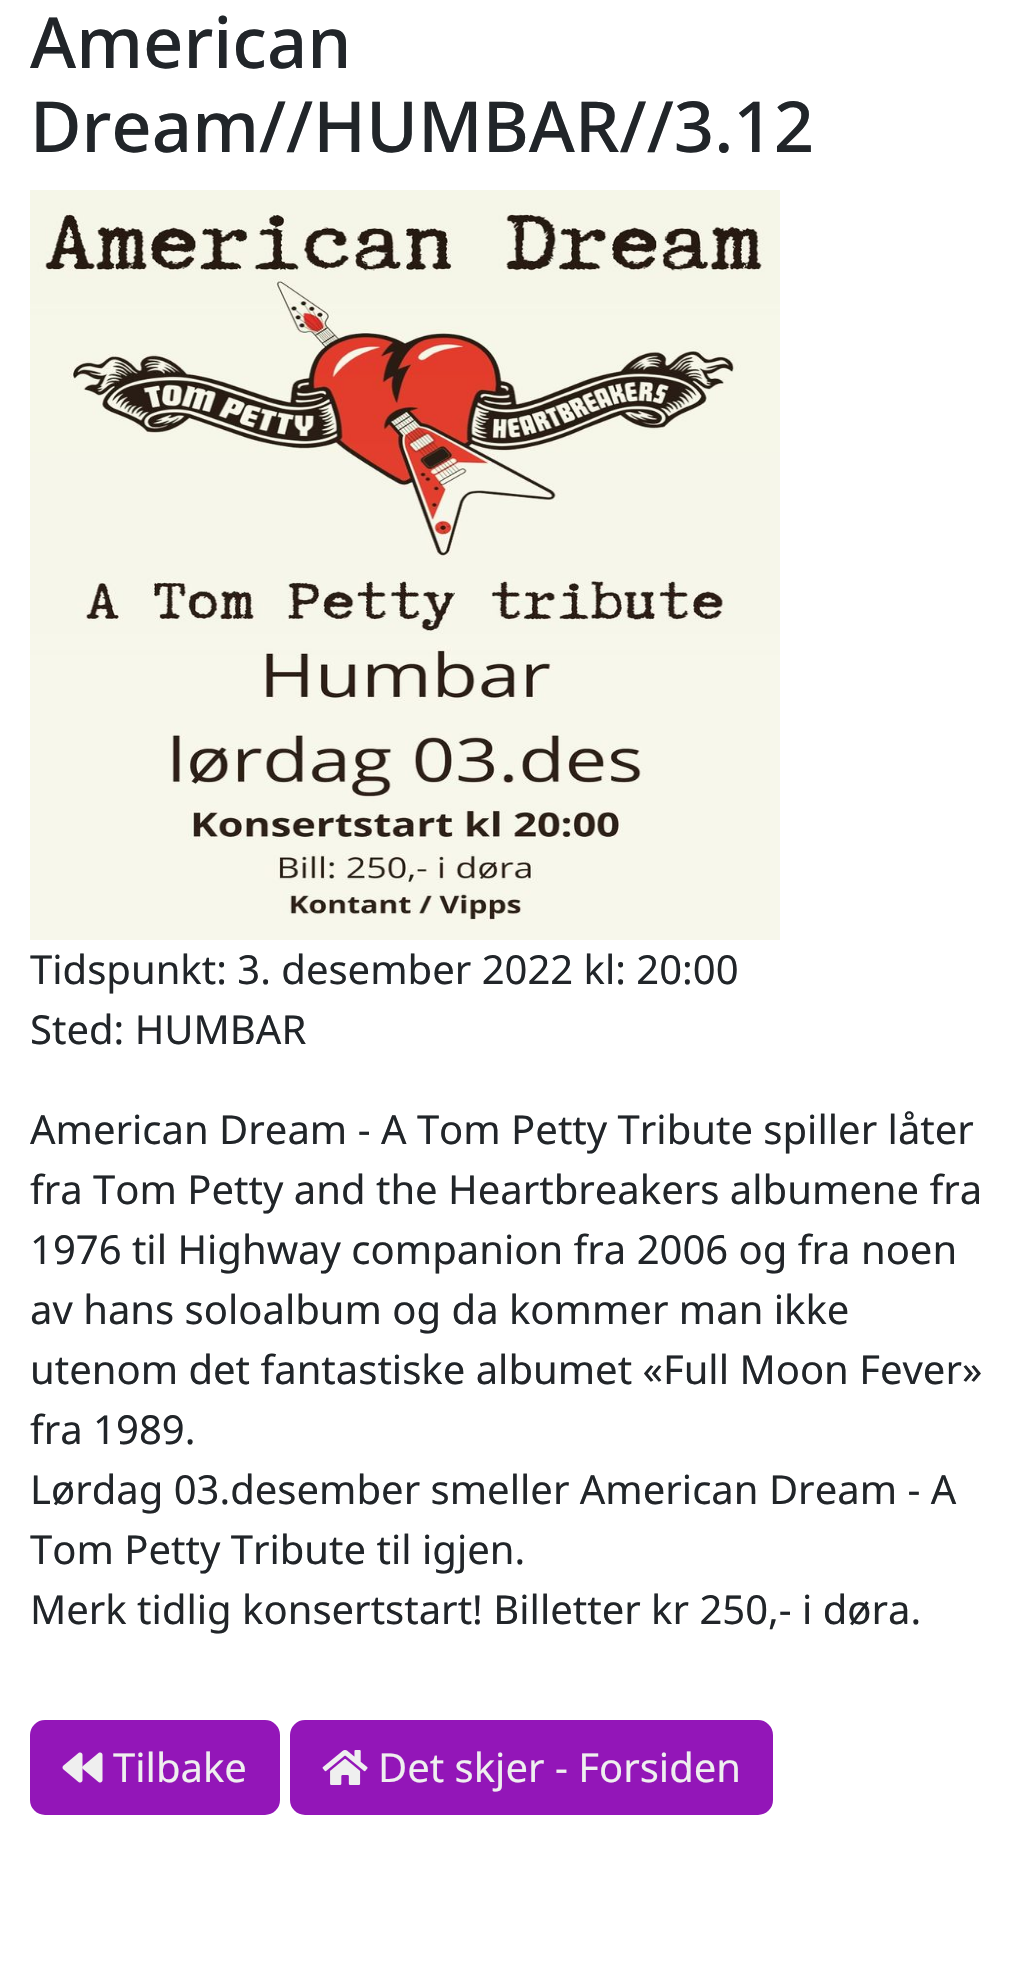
#include "include/core/SkBlurTypes.h"
#include "include/core/SkCanvas.h"
#include "include/core/SkData.h"
#include "include/core/SkFont.h"
#include "include/core/SkFontMgr.h"
#include "include/core/SkImage.h"
#include "include/core/SkMaskFilter.h"
#include "include/core/SkPaint.h"
#include "include/core/SkPathBuilder.h"
#include "include/core/SkTextBlob.h"
#include "include/effects/SkDashPathEffect.h"
#include "include/effects/SkGradientShader.h"
#include "include/utils/SkParsePath.h"

extern sk_sp<SkFontMgr> fontMgr;

void draw(SkCanvas* canvas) {
    SkPaint p;
    p.setAntiAlias(true);
    auto font = [&](const char* family, int weight, float size, bool italic = false) {
        SkFontStyle style(weight, SkFontStyle::kNormal_Width,
            italic ? SkFontStyle::kItalic_Slant : SkFontStyle::kUpright_Slant);
        SkFont result(fontMgr->matchFamilyStyle(family, style), size);
        result.setSubpixel(true);
        return result;
    };
    auto drawPhoto = [&](const char* path, float l, float t, float r, float b) {
        auto image = SkImages::DeferredFromEncodedData(SkData::MakeFromFileName(path));
        canvas->drawImageRect(image, SkRect::MakeLTRB(l, t, r, b), SkSamplingOptions());
    };
    canvas->clear(0xFFFFFFFF);
    auto font1 = font("Noto Sans", 500, 70.5f);
    p.setColor(0xFF212529);
    canvas->drawString("American", 30, 68, font1, p);
    canvas->drawString("Dream//HUMBAR//3.12", 30, 152, font1, p);
    drawPhoto("media/1.png", 30, 190, 780, 940);
    auto font2 = font("Noto Sans", 400, 40);
    {
        const struct { const char* s; float x, y; } items[] = {
            {"Tidspunkt: 3. desember 2022 kl: 20:00", 30, 984},
            {"Sted: HUMBAR", 30, 1044},
            {"American Dream - A Tom Petty Tribute spiller låter", 30, 1144},
            {"fra Tom Petty and the Heartbreakers albumene fra", 30, 1204},
            {"1976 til Highway companion fra 2006 og fra noen", 30, 1264},
            {"av hans soloalbum og da kommer man ikke", 30, 1324},
            {"utenom det fantastiske albumet «Full Moon Fever»", 30, 1384},
            {"fra 1989.", 30, 1444},
            {"Lørdag 03.desember smeller American Dream - A", 30, 1504},
            {"Tom Petty Tribute til igjen.", 30, 1564},
            {"Merk tidlig konsertstart! Billetter kr 250,- i døra.", 30, 1624},
        };
        for (auto [s, x, y] : items) {
            canvas->drawString(s, x, y, font2, p);
        }
    }
    p.setColor(0xFF9316B8);
    canvas->drawRoundRect(SkRect::MakeLTRB(31.5f, 1721.5f, 278.5f, 1813.5f), 13.5f, 13.5f, p);
    p.setStyle(SkPaint::kStroke_Style);
    p.setStrokeWidth(3);
    canvas->drawRoundRect(SkRect::MakeLTRB(31.5f, 1721.5f, 278.5f, 1813.5f), 13.5f, 13.5f, p);
    drawPhoto("media/2.png", 62, 1752, 103, 1783);
    p.setStyle(SkPaint::kFill_Style);
    p.setColor(0xFFEFEFEF);
    canvas->drawString("Tilbake", 113, 1782, font2, p);
    p.setColor(0xFF9316B8);
    canvas->drawRoundRect(SkRect::MakeLTRB(291.5f, 1721.5f, 771.5f, 1813.5f), 13.5f, 13.5f, p);
    p.setStyle(SkPaint::kStroke_Style);
    canvas->drawRoundRect(SkRect::MakeLTRB(291.5f, 1721.5f, 771.5f, 1813.5f), 13.5f, 13.5f, p);
    drawPhoto("media/3.png", 322, 1750, 368, 1785);
    p.setStyle(SkPaint::kFill_Style);
    p.setColor(0xFFEFEFEF);
    canvas->drawString("Det skjer - Forsiden", 378, 1782, font2, p);
}
